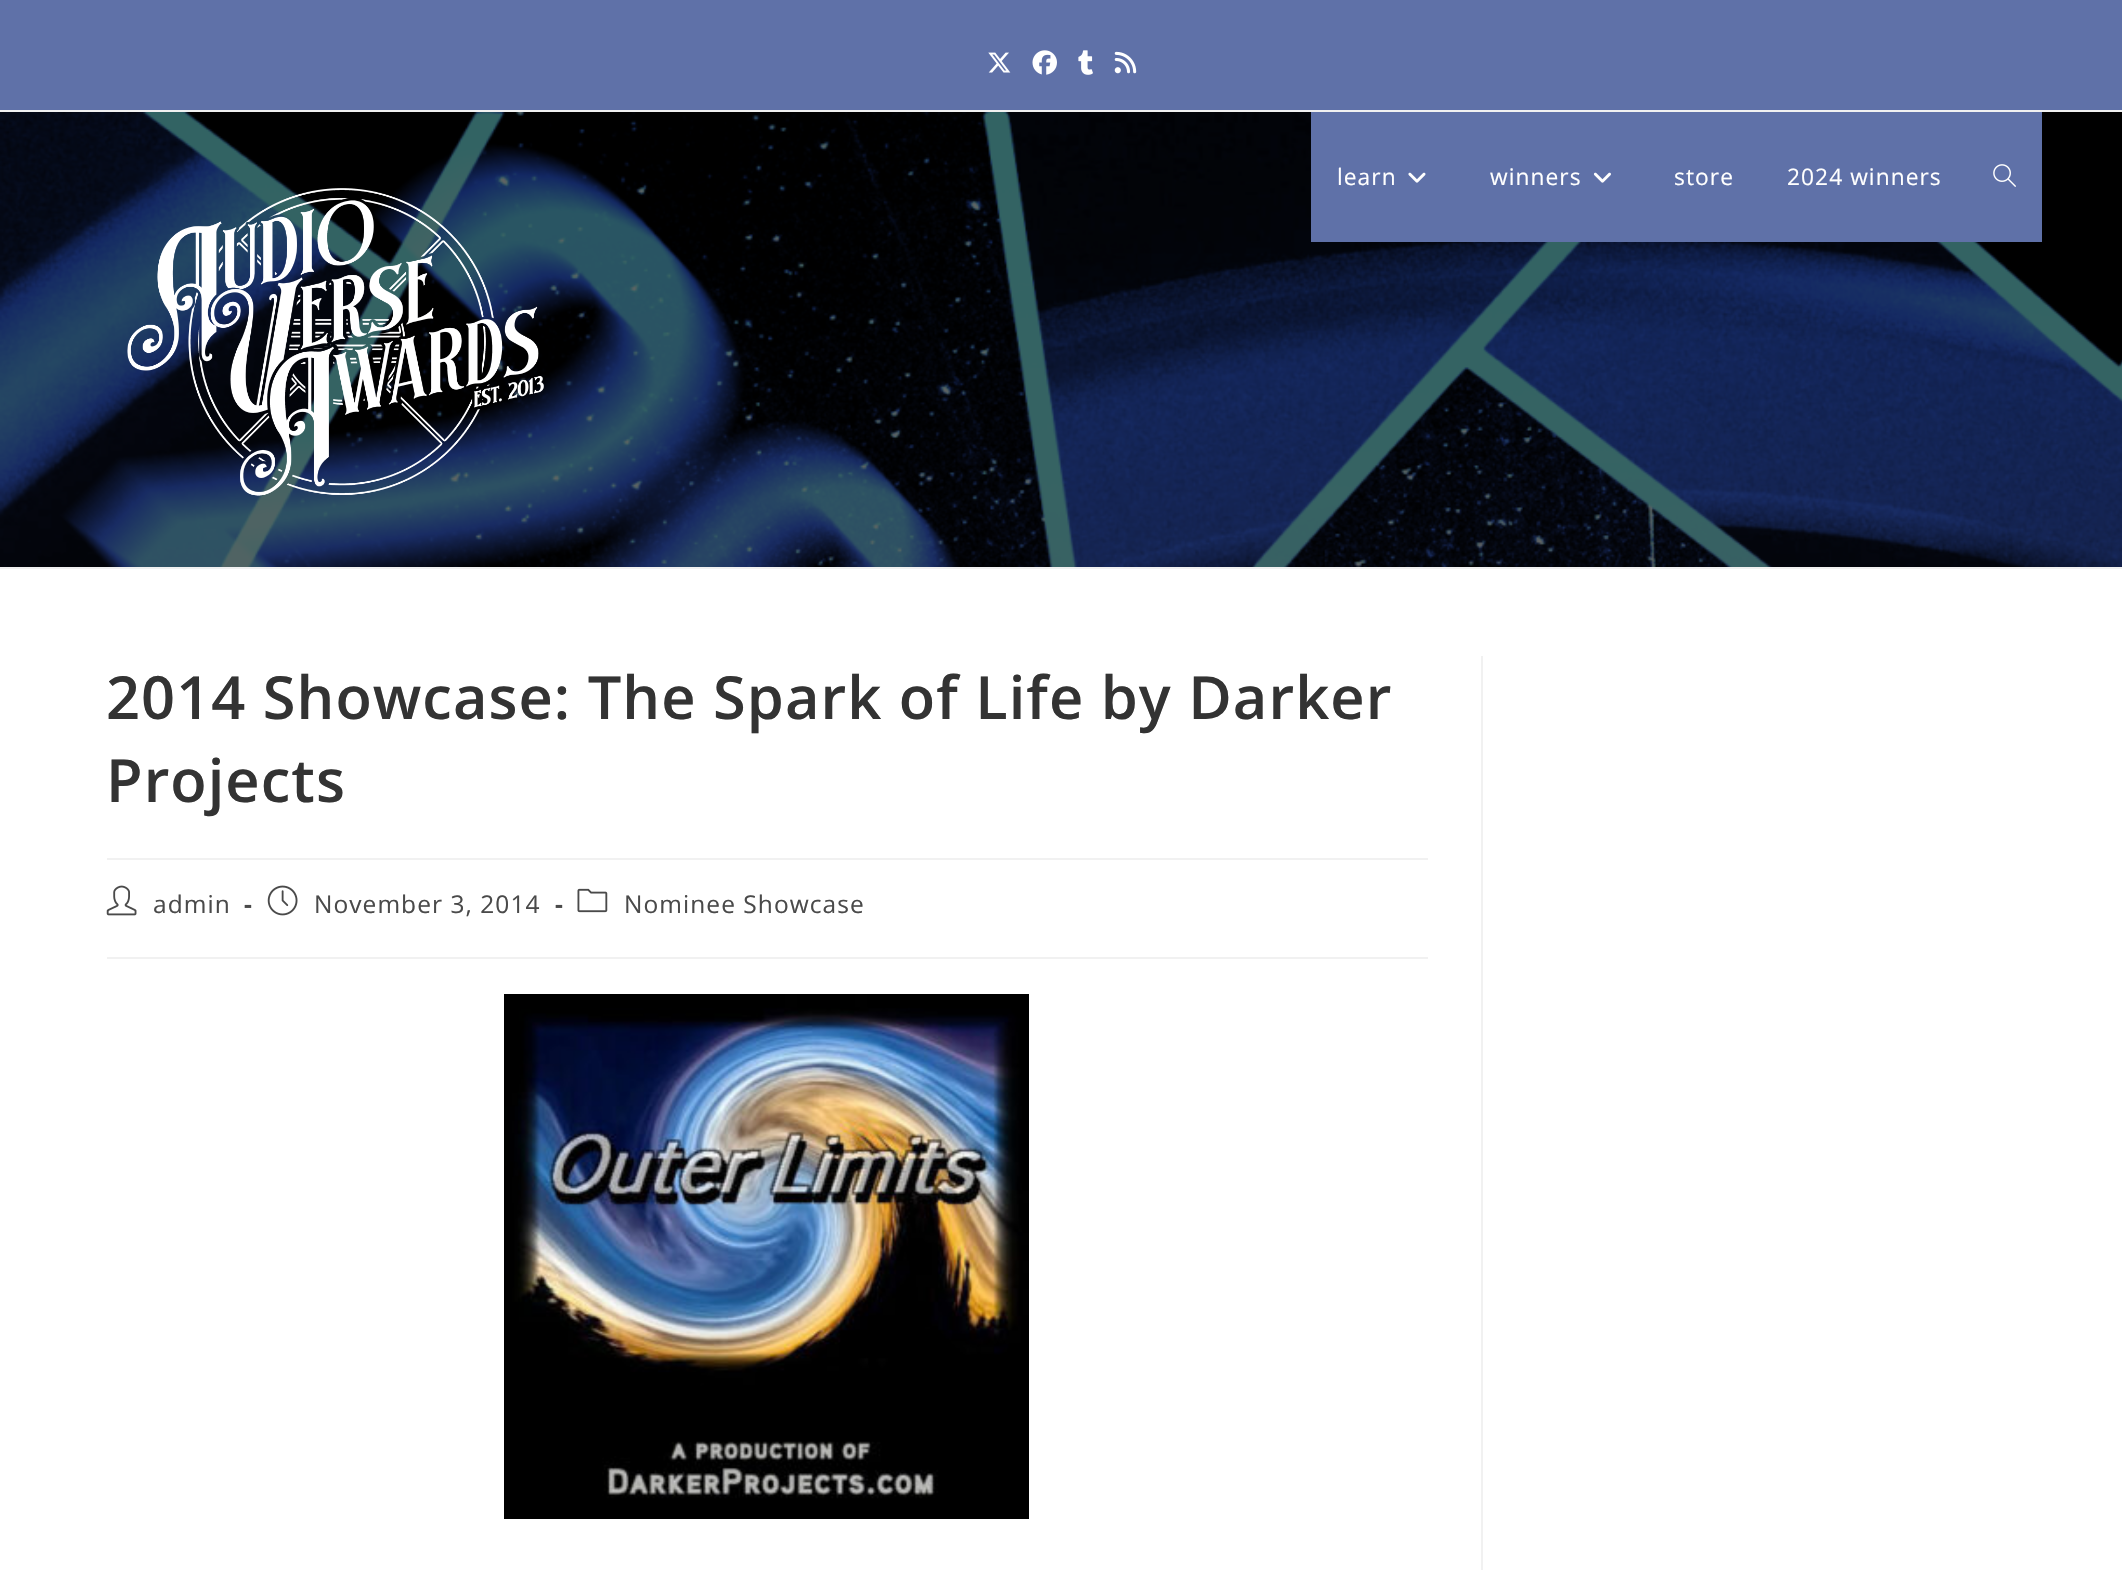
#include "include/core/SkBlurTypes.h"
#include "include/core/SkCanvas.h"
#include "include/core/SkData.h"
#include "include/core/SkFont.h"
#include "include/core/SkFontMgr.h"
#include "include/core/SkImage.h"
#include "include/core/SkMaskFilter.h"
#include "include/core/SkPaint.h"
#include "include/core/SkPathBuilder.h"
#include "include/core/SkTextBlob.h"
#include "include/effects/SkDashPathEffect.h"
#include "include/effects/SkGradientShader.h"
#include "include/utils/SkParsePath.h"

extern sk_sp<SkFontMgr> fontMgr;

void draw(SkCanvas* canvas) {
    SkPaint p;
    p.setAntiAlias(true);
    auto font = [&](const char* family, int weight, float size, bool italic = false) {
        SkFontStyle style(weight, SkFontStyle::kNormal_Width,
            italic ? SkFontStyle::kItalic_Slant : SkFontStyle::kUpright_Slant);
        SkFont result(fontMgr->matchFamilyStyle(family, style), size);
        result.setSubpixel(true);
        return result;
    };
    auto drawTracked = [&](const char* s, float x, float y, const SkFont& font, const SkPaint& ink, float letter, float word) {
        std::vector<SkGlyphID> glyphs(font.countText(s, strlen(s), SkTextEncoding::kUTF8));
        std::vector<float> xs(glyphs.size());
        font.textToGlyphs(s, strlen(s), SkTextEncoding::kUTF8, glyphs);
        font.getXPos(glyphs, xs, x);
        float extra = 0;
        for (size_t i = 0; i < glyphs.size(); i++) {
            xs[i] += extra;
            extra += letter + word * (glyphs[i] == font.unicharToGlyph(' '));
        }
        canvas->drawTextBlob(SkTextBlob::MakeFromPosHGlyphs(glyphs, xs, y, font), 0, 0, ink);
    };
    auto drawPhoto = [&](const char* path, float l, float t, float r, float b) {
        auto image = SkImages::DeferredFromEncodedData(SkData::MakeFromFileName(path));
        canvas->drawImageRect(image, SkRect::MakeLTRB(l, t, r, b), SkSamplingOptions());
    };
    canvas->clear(0xFFFFFFFF);
    p.setColor(0xFF5F71A8);
    canvas->drawRect(SkRect::MakeLTRB(0, 0, 2122, 110), p);
    p.setColor(0xFFF1F1F1);
    canvas->drawRect(SkRect::MakeLTRB(0, 110, 2122, 112), p);
    drawPhoto("media/1.png", 988, 52, 1011, 73);
    drawPhoto("media/2.png", 1032, 50, 1057, 75);
    drawPhoto("media/3.png", 1078, 50, 1093, 75);
    drawPhoto("media/4.png", 1114, 51, 1137, 74);
    drawPhoto("media/5.png", 0, 112, 2122, 567);
    canvas->drawRect(SkRect::MakeLTRB(0, 567, 2122, 569), p);
    p.setColor(0xFF5F71A8);
    canvas->drawRect(SkRect::MakeLTRB(1311, 112, 2042, 242), p);
    auto font1 = font("Open Sans", 400, 22.75f);
    p.setColor(0xFFFFFFFF);
    drawTracked("learn", 1337, 185, font1, p, 1.05f, 0);
    drawPhoto("media/6.png", 1408, 172, 1426, 183);
    drawTracked("winners", 1490, 185, font1, p, 1.05f, 0);
    drawPhoto("media/7.png", 1593, 172, 1611, 183);
    drawTracked("store", 1674, 185, font1, p, 1.05f, 0);
    drawTracked("2024 winners", 1787, 185, font1, p, 1.05f, 0);
    drawPhoto("media/8.png", 1993, 164, 2016, 187);
    drawPhoto("media/9.png", 127, 188, 544, 496);
    p.setColor(0xFFF1F1F1);
    canvas->drawRect(SkRect::MakeLTRB(1481, 656, 1483, 1570), p);
    canvas->drawRect(SkRect::MakeLTRB(107, 858, 1428, 860), p);
    auto font2 = font("Open Sans", 600, 59.5f);
    p.setColor(0xFF333333);
    drawTracked("2014 Showcase: The Spark of Life by Darker", 106, 719, font2, p, 1.05f, 0);
    drawTracked("Projects", 106, 802, font2, p, 1.05f, 0);
    p.setColor(0xFFF1F1F1);
    canvas->drawRect(SkRect::MakeLTRB(107, 957, 1428, 959), p);
    drawPhoto("media/10.png", 106, 885, 137, 916);
    auto font3 = font("Open Sans", 400, 24.5f);
    p.setColor(0xFF4A4A4A);
    drawTracked("admin", 153, 913, font3, p, 1.05f, 0);
    auto font4 = font("Open Sans", 700, 24.5f);
    drawTracked("-", 244, 913, font4, p, 1.05f, 0);
    drawPhoto("media/11.png", 267, 885, 298, 916);
    drawTracked("November 3, 2014", 314, 913, font3, p, 1.05f, 0);
    drawTracked("-", 555, 913, font4, p, 1.05f, 0);
    drawPhoto("media/12.png", 577, 888, 608, 913);
    drawTracked("Nominee Showcase", 624, 913, font3, p, 1.05f, 0);
    drawPhoto("media/13.png", 504, 994, 1029, 1519);
}
